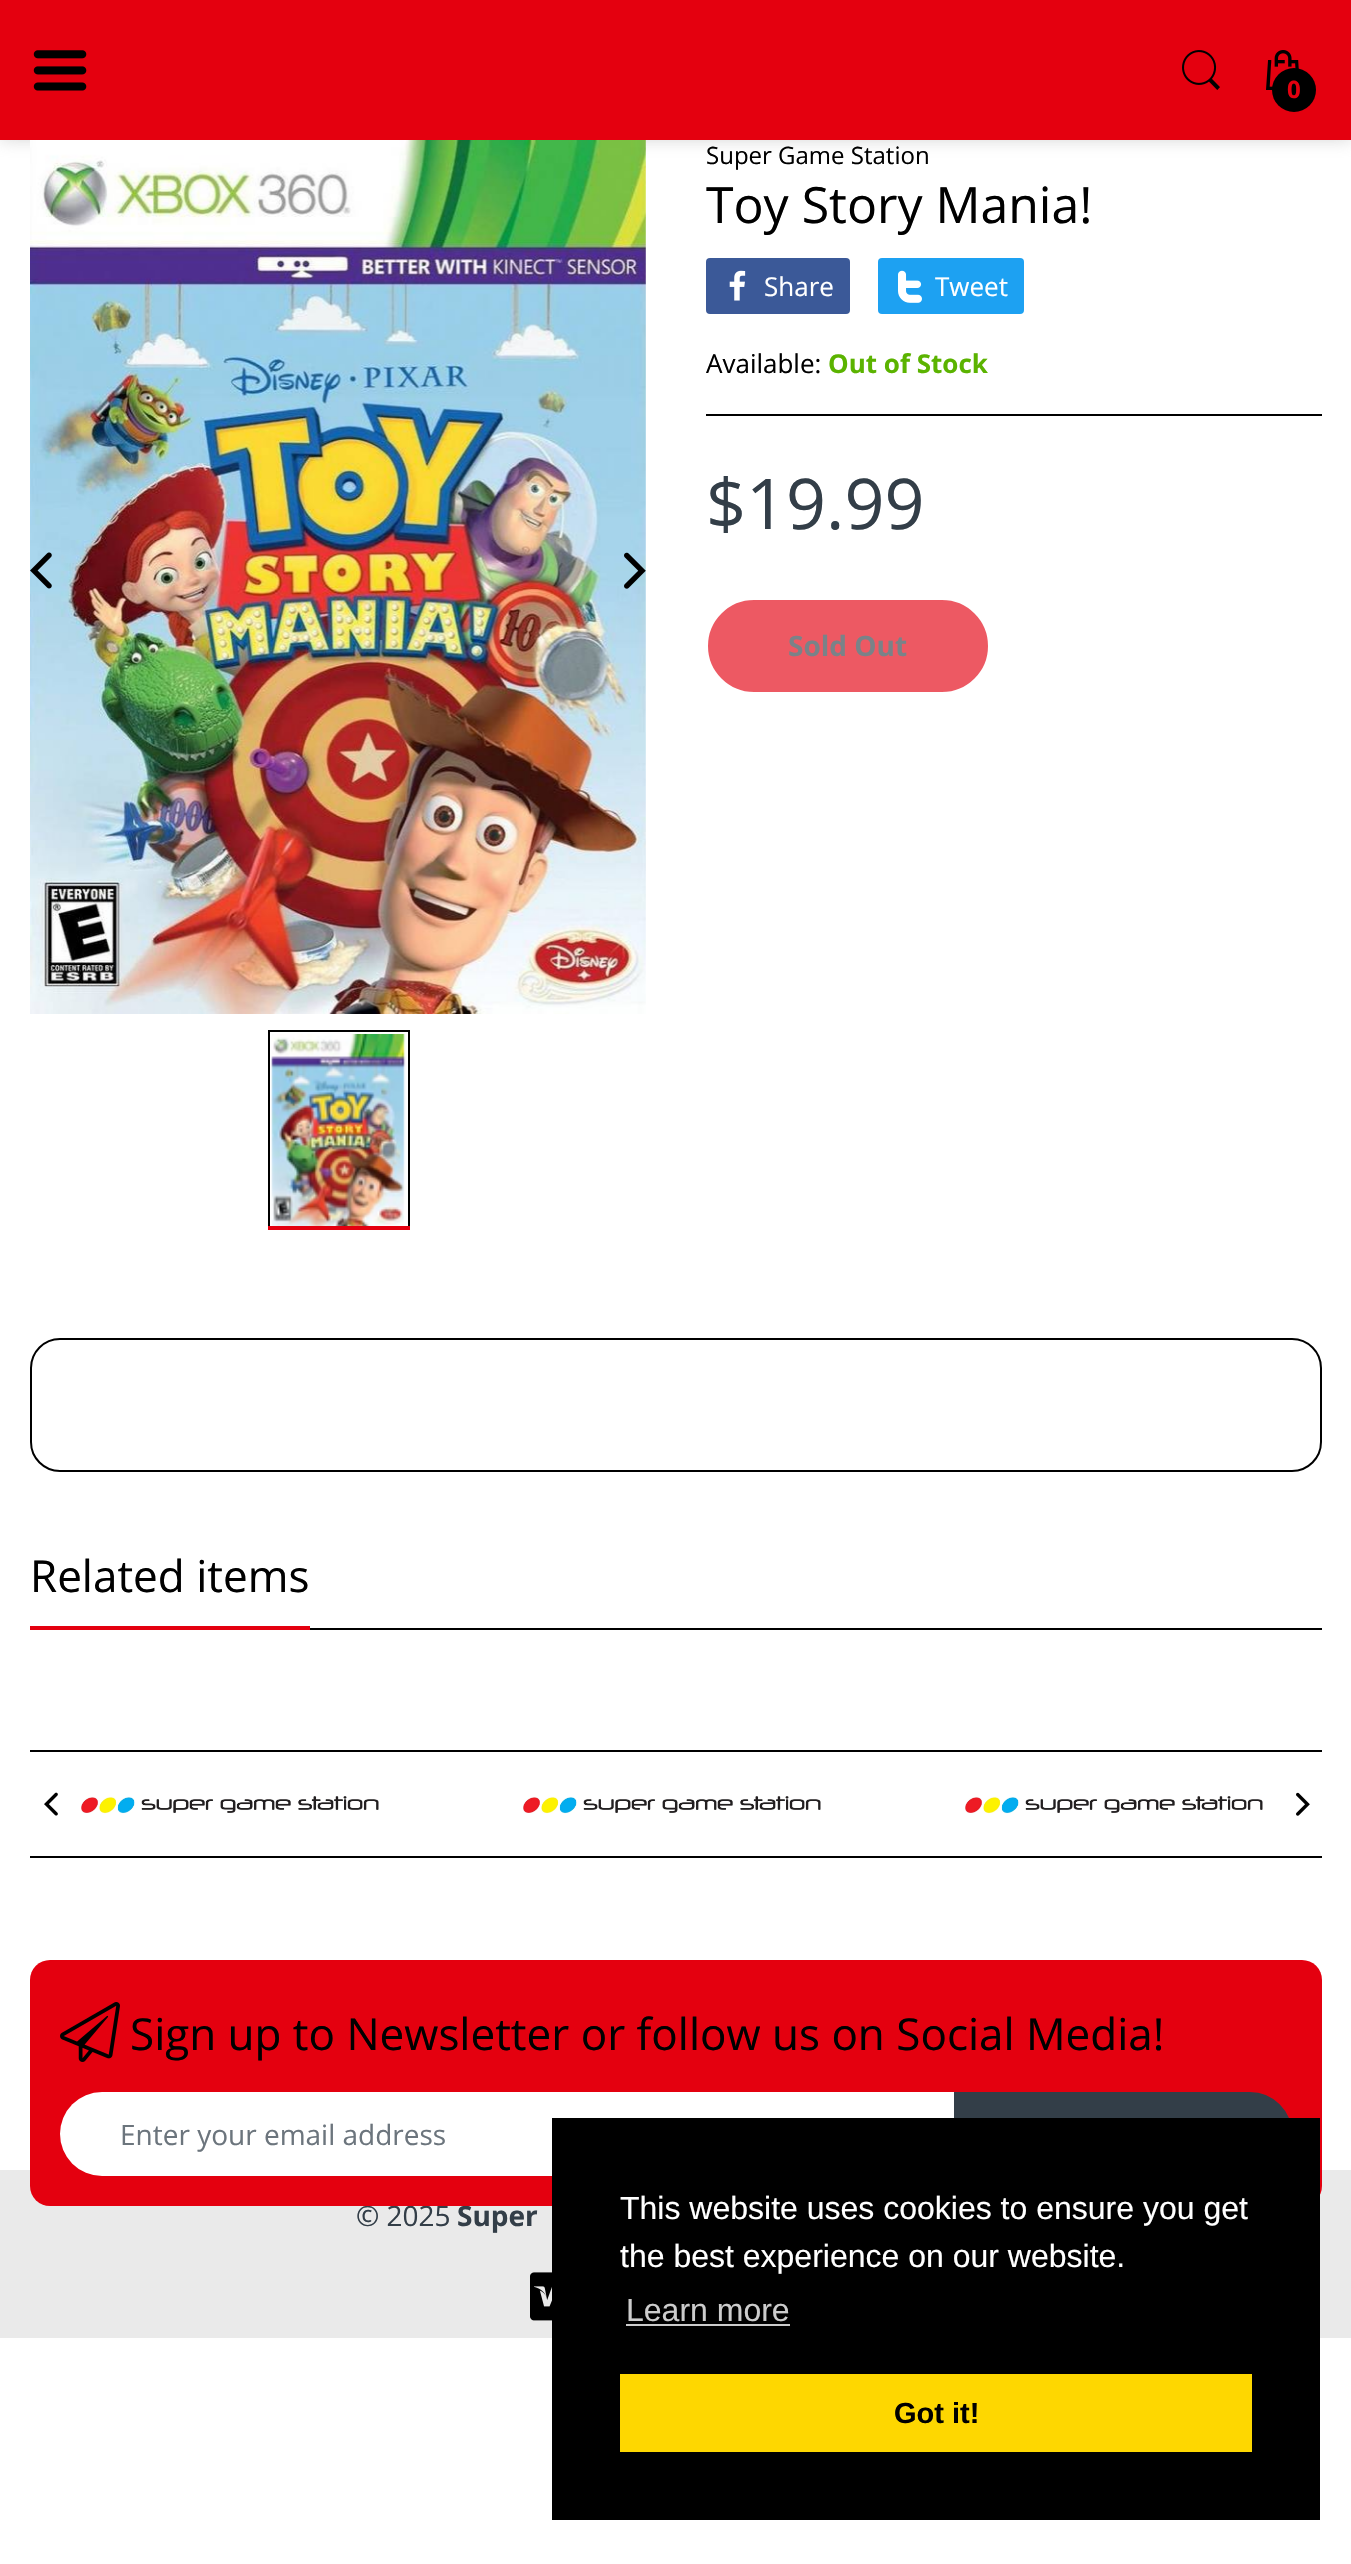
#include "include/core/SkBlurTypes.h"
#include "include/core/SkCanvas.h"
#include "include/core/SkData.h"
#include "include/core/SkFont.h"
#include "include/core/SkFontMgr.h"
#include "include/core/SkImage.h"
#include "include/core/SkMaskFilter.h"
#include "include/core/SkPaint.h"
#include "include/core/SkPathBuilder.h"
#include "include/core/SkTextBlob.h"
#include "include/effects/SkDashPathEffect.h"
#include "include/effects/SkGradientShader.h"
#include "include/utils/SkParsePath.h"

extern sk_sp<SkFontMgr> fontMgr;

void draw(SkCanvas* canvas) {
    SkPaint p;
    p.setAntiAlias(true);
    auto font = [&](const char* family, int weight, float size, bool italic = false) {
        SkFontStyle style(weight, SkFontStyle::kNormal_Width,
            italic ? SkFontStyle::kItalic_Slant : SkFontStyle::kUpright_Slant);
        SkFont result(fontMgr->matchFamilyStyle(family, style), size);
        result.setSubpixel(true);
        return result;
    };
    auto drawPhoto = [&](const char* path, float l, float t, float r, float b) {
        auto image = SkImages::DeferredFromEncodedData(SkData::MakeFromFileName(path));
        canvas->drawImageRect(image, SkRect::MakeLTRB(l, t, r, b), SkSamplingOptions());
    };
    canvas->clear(0xFFFFFFFF);
    p.setColor(0xBFC9C9C9);
    p.setMaskFilter(SkMaskFilter::MakeBlur(kNormal_SkBlurStyle, 8));
    canvas->drawRect(SkRect::MakeLTRB(0, 0, 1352, 140), p);
    p.setMaskFilter(nullptr);
    p.setColor(0xFFE4000F);
    canvas->drawRect(SkRect::MakeLTRB(0, 0, 1351, 140), p);
    drawPhoto("media/1.png", 33, 50, 87, 91);
    drawPhoto("media/2.png", 1182, 50, 1220, 90);
    drawPhoto("media/3.png", 1266, 50, 1299, 90);
    p.setColor(0xFF000000);
    canvas->drawCircle(1294, 90, 22, p);
    auto font1 = font("Open Sans", 700, 24);
    p.setColor(0xFFE4000F);
    canvas->drawString("0", 1287, 98, font1, p);
    drawPhoto("media/4.png", 30, 140, 646, 1014);
    drawPhoto("media/5.png", 30, 552, 52, 589);
    drawPhoto("media/6.png", 624, 552, 646, 589);
    p.setStyle(SkPaint::kStroke_Style);
    p.setStrokeWidth(2);
    p.setColor(0xFF000000);
    canvas->drawRect(SkRect::MakeLTRB(269, 1031, 409, 1229), p);
    drawPhoto("media/7.png", 271, 1034, 406, 1226);
    p.setStyle(SkPaint::kFill_Style);
    p.setColor(0xFFE4000F);
    canvas->drawRect(SkRect::MakeLTRB(268, 1226, 410, 1230), p);
    auto font2 = font("Open Sans", 400, 24);
    p.setColor(0xFF000000);
    canvas->drawString("Super Game Station", 706, 164, font2, p);
    auto font3 = font("Open Sans", 400, 50);
    canvas->drawString("Toy Story Mania!", 706, 223, font3, p);
    p.setColor(0xFF3B5998);
    canvas->drawRoundRect(SkRect::MakeLTRB(706, 258, 850, 314), 4, 4, p);
    drawPhoto("media/8.png", 729, 270, 746, 301);
    auto font4 = font("Open Sans", 400, 26);
    p.setColor(0xFFFFFFFF);
    canvas->drawString("Share", 764, 296, font4, p);
    p.setColor(0xFF1DA1F2);
    canvas->drawRoundRect(SkRect::MakeLTRB(878, 258, 1024, 314), 4, 4, p);
    drawPhoto("media/9.png", 898, 270, 922, 303);
    p.setColor(0xFFFFFFFF);
    canvas->drawString("Tweet", 935, 296, font4, p);
    p.setColor(0xFF000000);
    canvas->drawRect(SkRect::MakeLTRB(706, 414, 1322, 416), p);
    canvas->drawString("Available:", 706, 373, font4, p);
    auto font5 = font("Open Sans", 700, 26);
    p.setColor(0xFF5BB300);
    canvas->drawString("Out of Stock", 828, 373, font5, p);
    auto font6 = font("Open Sans", 400, 70);
    p.setColor(0xFF333E48);
    canvas->drawString("$19.99", 706, 529, font6, p);
    p.setColor(0xFFED5963);
    canvas->drawRoundRect(SkRect::MakeLTRB(707, 599, 989, 693), 47, 47, p);
    p.setStyle(SkPaint::kStroke_Style);
    p.setColor(0xFFFFFFFF);
    canvas->drawRoundRect(SkRect::MakeLTRB(707, 599, 989, 693), 47, 47, p);
    auto font7 = font("Open Sans", 700, 28);
    p.setStyle(SkPaint::kFill_Style);
    p.setColor(0xFF7A8288);
    canvas->drawString("Sold Out", 788, 656, font7, p);
    p.setStyle(SkPaint::kStroke_Style);
    p.setColor(0xFF000000);
    canvas->drawRoundRect(SkRect::MakeLTRB(31, 1339, 1321, 1471), 29, 29, p);
    p.setStyle(SkPaint::kFill_Style);
    canvas->drawRect(SkRect::MakeLTRB(310, 1628, 1322, 1630), p);
    auto font8 = font("Open Sans", 400, 44);
    canvas->drawString("Related items", 30, 1592, font8, p);
    {
        const struct { float l, t, r, b; SkColor color; } items[] = {
            {30, 1626, 310, 1630, 0xFFE4000F},
            {30, 1750, 1322, 1752, 0xFF000000},
            {30, 1856, 1322, 1858, 0xFF000000},
        };
        for (auto [l, t, r, b, color] : items) {
            p.setColor(color);
            canvas->drawRect(SkRect::MakeLTRB(l, t, r, b), p);
        }
    }
    drawPhoto("media/10.png", 44, 1792, 58, 1816);
    drawPhoto("media/11.png", 1296, 1792, 1310, 1816);
    drawPhoto("media/12.png", 81, 1796, 379, 1814);
    drawPhoto("media/12.png", 523, 1796, 821, 1814);
    drawPhoto("media/12.png", 965, 1796, 1263, 1814);
    p.setColor(0xFFEAEAEA);
    canvas->drawRect(SkRect::MakeLTRB(0, 2170, 1351, 2338), p);
    auto font9 = font("Open Sans", 400, 28);
    p.setColor(0xFF333E48);
    canvas->drawString("© 2025", 356, 2226, font9, p);
    canvas->drawString("Super", 457, 2226, font7, p);
    p.setColor(0xFFE4000F);
    canvas->drawRoundRect(SkRect::MakeLTRB(30, 1960, 1322, 2206), 20, 20, p);
    drawPhoto("media/13.png", 60, 2002, 120, 2062);
    p.setColor(0xFF000000);
    canvas->drawString("Sign up to Newsletter or follow us on Social Media!", 130, 2050, font8, p);
    p.setColor(0xFFFFFFFF);
    canvas->drawRoundRect(SkRect::MakeLTRB(60, 2092, 1108, 2176), 42, 42, p);
    p.setColor(0xFF6C757D);
    canvas->drawString("Enter your email address", 120, 2145, font9, p);
    p.setColor(0xFF333E48);
    canvas->drawPath(SkPathBuilder().moveTo(955, 2093).lineTo(1250, 2093).cubicTo(1272.5f, 2093, 1291, 2111.5f, 1291, 2134).cubicTo(1291, 2156.5f, 1272.5f, 2175, 1250, 2175).lineTo(955, 2175).close().detach(), p);
    p.setStyle(SkPaint::kStroke_Style);
    canvas->drawPath(SkPathBuilder().moveTo(955, 2093).lineTo(1250, 2093).cubicTo(1272.5f, 2093, 1291, 2111.5f, 1291, 2134).cubicTo(1291, 2156.5f, 1272.5f, 2175, 1250, 2175).lineTo(955, 2175).close().detach(), p);
    drawPhoto("media/14.png", 530, 2272, 552, 2321);
    p.setStyle(SkPaint::kFill_Style);
    p.setColor(0xFF000000);
    canvas->drawRect(SkRect::MakeLTRB(552, 2118, 1320, 2520), p);
    auto font10 = font("Liberation Sans", 400, 32);
    p.setColor(0xFFFFFFFF);
    canvas->drawString("This website uses cookies to ensure you get", 620, 2219, font10, p);
    canvas->drawString("the best experience on our website.", 620, 2267, font10, p);
    p.setColor(0xFFCCCCCC);
    canvas->drawString("Learn more", 626, 2321, font10, p);
    canvas->drawRect(SkRect::MakeLTRB(626, 2324, 790, 2326), p);
    p.setColor(0xFFFED700);
    canvas->drawRect(SkRect::MakeLTRB(620, 2374, 1252, 2452), p);
    auto font11 = font("Liberation Sans", 700, 29);
    p.setColor(0xFF000000);
    canvas->drawString("Got it!", 894, 2423, font11, p);
}
